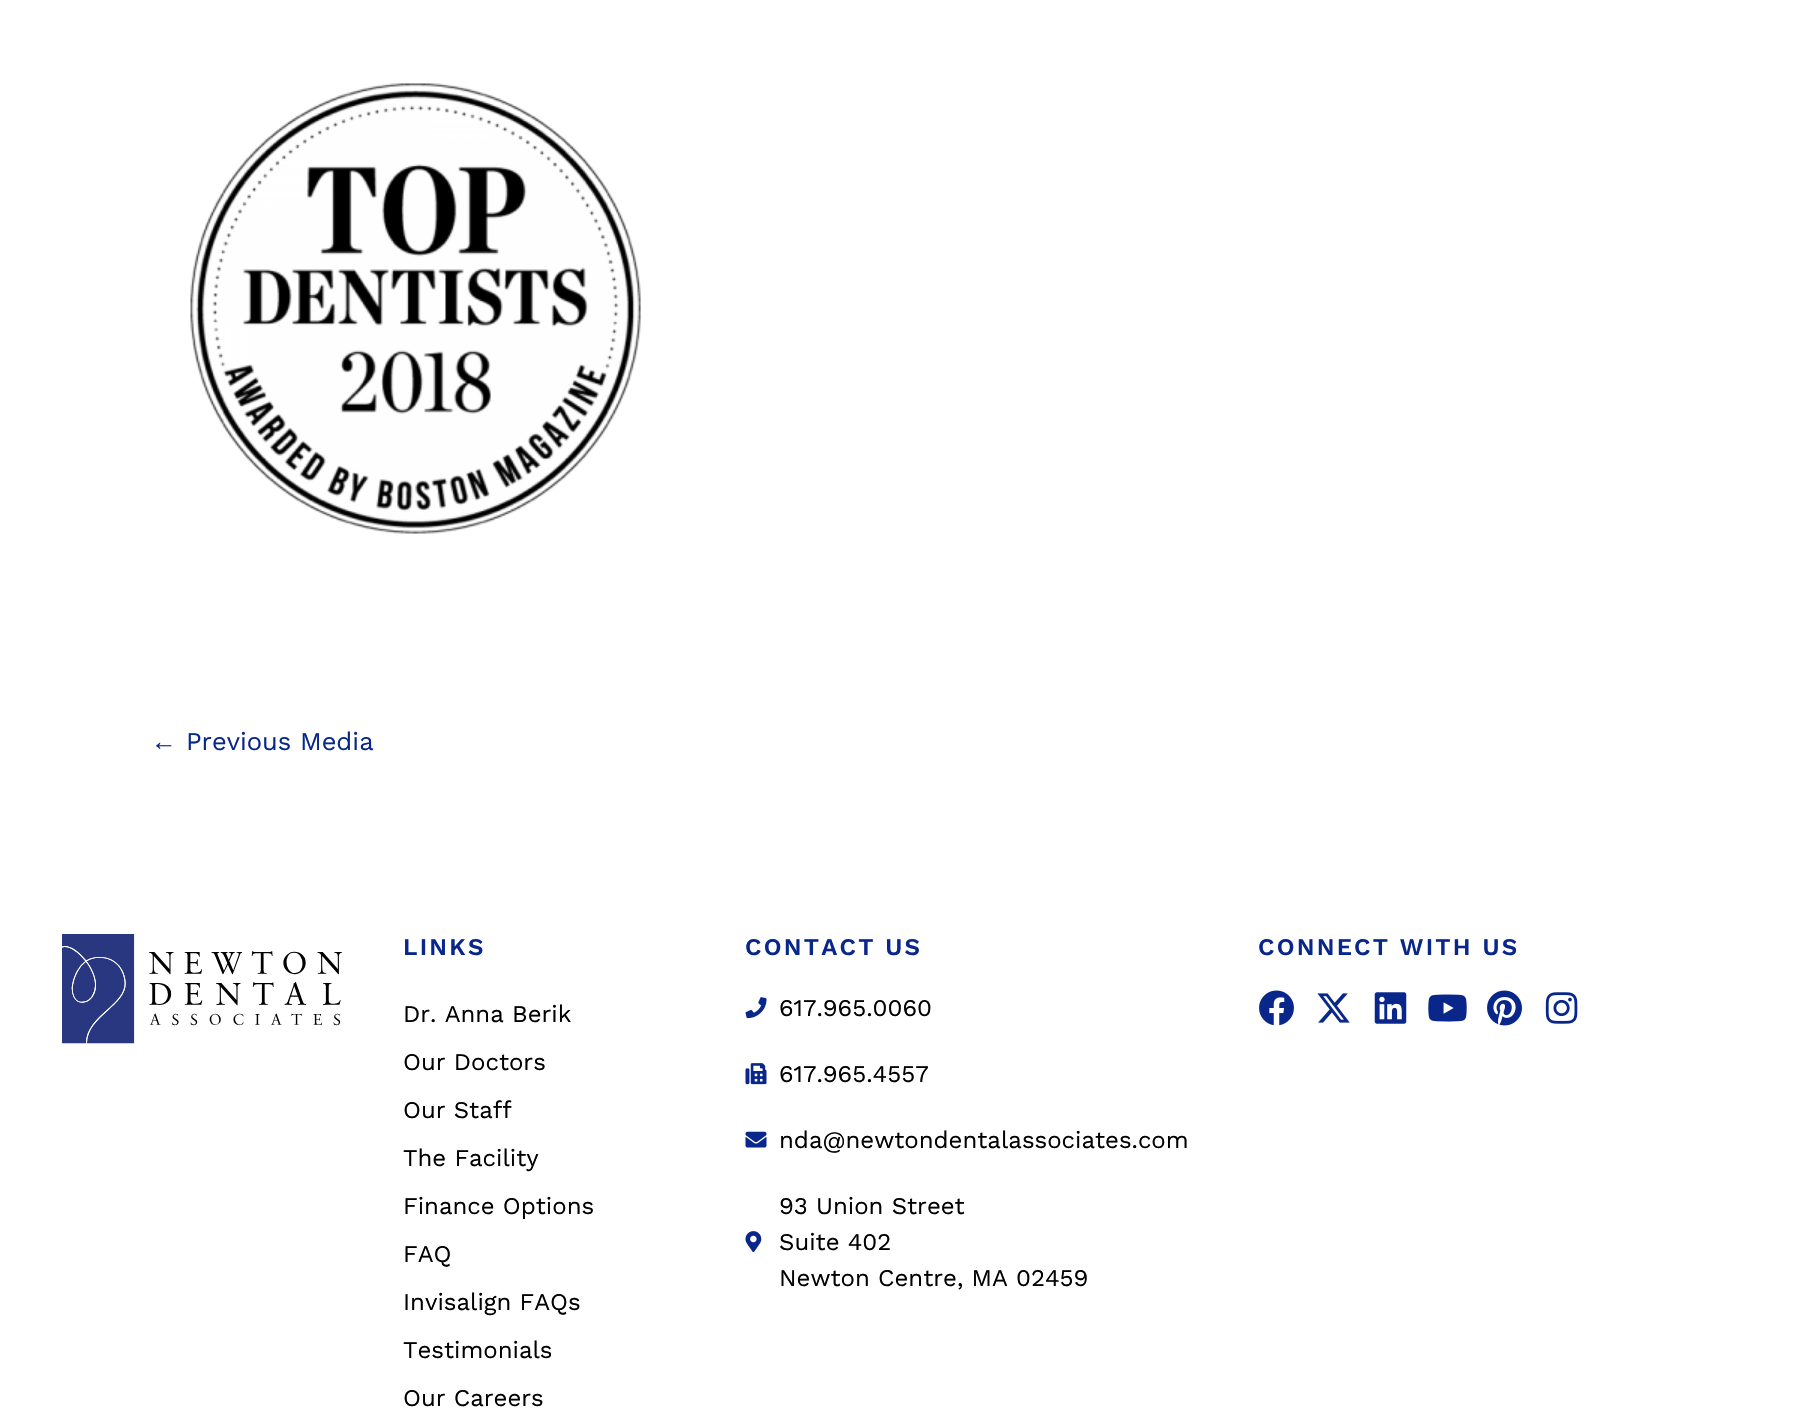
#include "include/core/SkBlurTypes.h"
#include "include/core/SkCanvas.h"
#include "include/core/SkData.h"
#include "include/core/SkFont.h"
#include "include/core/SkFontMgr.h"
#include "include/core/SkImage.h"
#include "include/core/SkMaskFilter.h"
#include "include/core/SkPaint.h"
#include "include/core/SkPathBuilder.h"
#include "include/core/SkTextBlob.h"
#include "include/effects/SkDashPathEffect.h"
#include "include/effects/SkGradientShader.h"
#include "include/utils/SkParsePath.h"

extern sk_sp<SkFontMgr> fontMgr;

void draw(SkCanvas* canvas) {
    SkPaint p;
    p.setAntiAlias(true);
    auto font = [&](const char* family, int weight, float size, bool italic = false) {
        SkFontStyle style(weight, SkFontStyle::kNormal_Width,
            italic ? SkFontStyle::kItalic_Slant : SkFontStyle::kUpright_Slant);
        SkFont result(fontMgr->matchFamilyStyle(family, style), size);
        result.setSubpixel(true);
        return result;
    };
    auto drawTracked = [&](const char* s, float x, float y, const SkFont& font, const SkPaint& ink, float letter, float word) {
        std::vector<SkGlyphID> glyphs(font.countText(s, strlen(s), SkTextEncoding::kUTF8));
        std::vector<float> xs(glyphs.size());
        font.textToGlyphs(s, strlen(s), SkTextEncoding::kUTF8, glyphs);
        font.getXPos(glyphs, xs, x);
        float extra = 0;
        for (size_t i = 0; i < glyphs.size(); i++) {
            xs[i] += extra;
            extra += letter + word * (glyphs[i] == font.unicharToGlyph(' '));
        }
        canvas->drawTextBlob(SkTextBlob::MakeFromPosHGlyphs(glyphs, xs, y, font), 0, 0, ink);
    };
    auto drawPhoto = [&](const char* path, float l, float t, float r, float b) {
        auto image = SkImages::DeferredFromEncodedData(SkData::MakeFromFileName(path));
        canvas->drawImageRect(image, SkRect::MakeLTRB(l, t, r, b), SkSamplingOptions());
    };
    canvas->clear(0xFFFFFFFF);
    drawPhoto("media/1.png", 190, 83, 641, 534);
    auto font1 = font("Liberation Sans", 400, 25.5f);
    p.setColor(0xFF09278A);
    canvas->drawString("←", 151, 750, font1, p);
    auto font2 = font("Work Sans", 400, 25.5f);
    canvas->drawString("Previous Media", 186, 750, font2, p);
    drawPhoto("media/2.png", 62, 934, 342, 1044);
    auto font3 = font("Work Sans", 600, 24);
    drawTracked("LINKS", 403, 955, font3, p, 2.25f, 0);
    auto font4 = font("Work Sans", 400, 24);
    p.setColor(0xFF000000);
    {
        const struct { const char* s; float x, y; } items[] = {
            {"Dr. Anna Berik", 403, 1022},
            {"Our Doctors", 403, 1070},
            {"Our Staff", 403, 1118},
            {"The Facility", 403, 1166},
            {"Finance Options", 403, 1214},
            {"FAQ", 403, 1262},
            {"Invisalign FAQs", 403, 1310},
            {"Testimonials", 403, 1358},
            {"Our Careers", 403, 1406},
        };
        for (auto [s, x, y] : items) {
            canvas->drawString(s, x, y, font4, p);
        }
    }
    p.setColor(0xFF09278A);
    drawTracked("CONTACT US", 745, 955, font3, p, 2.25f, 0);
    drawPhoto("media/3.png", 745, 997, 767, 1019);
    p.setColor(0xFF000000);
    canvas->drawString("617.965.0060", 779, 1016, font4, p);
    drawPhoto("media/4.png", 745, 1063, 767, 1085);
    canvas->drawString("617.965.4557", 779, 1082, font4, p);
    drawPhoto("media/5.png", 745, 1131, 767, 1148);
    canvas->drawString("nda@newtondentalassociates.com", 779, 1148, font4, p);
    drawPhoto("media/6.png", 745, 1231, 762, 1253);
    {
        const struct { const char* s; float x, y; } items[] = {
            {"93 Union Street", 779, 1214},
            {"Suite 402", 779, 1250},
            {"Newton Centre, MA 02459", 779, 1286},
        };
        for (auto [s, x, y] : items) {
            canvas->drawString(s, x, y, font4, p);
        }
    }
    p.setColor(0xFF09278A);
    drawTracked("CONNECT WITH US", 1258, 955, font3, p, 2.25f, 0);
    drawPhoto("media/7.png", 1259, 990, 1294, 1026);
    drawPhoto("media/8.png", 1317, 993, 1350, 1023);
    drawPhoto("media/9.png", 1374, 992, 1407, 1024);
    drawPhoto("media/10.png", 1428, 994, 1467, 1022);
    drawPhoto("media/11.png", 1487, 990, 1522, 1026);
    drawPhoto("media/12.png", 1545, 992, 1578, 1024);
}
